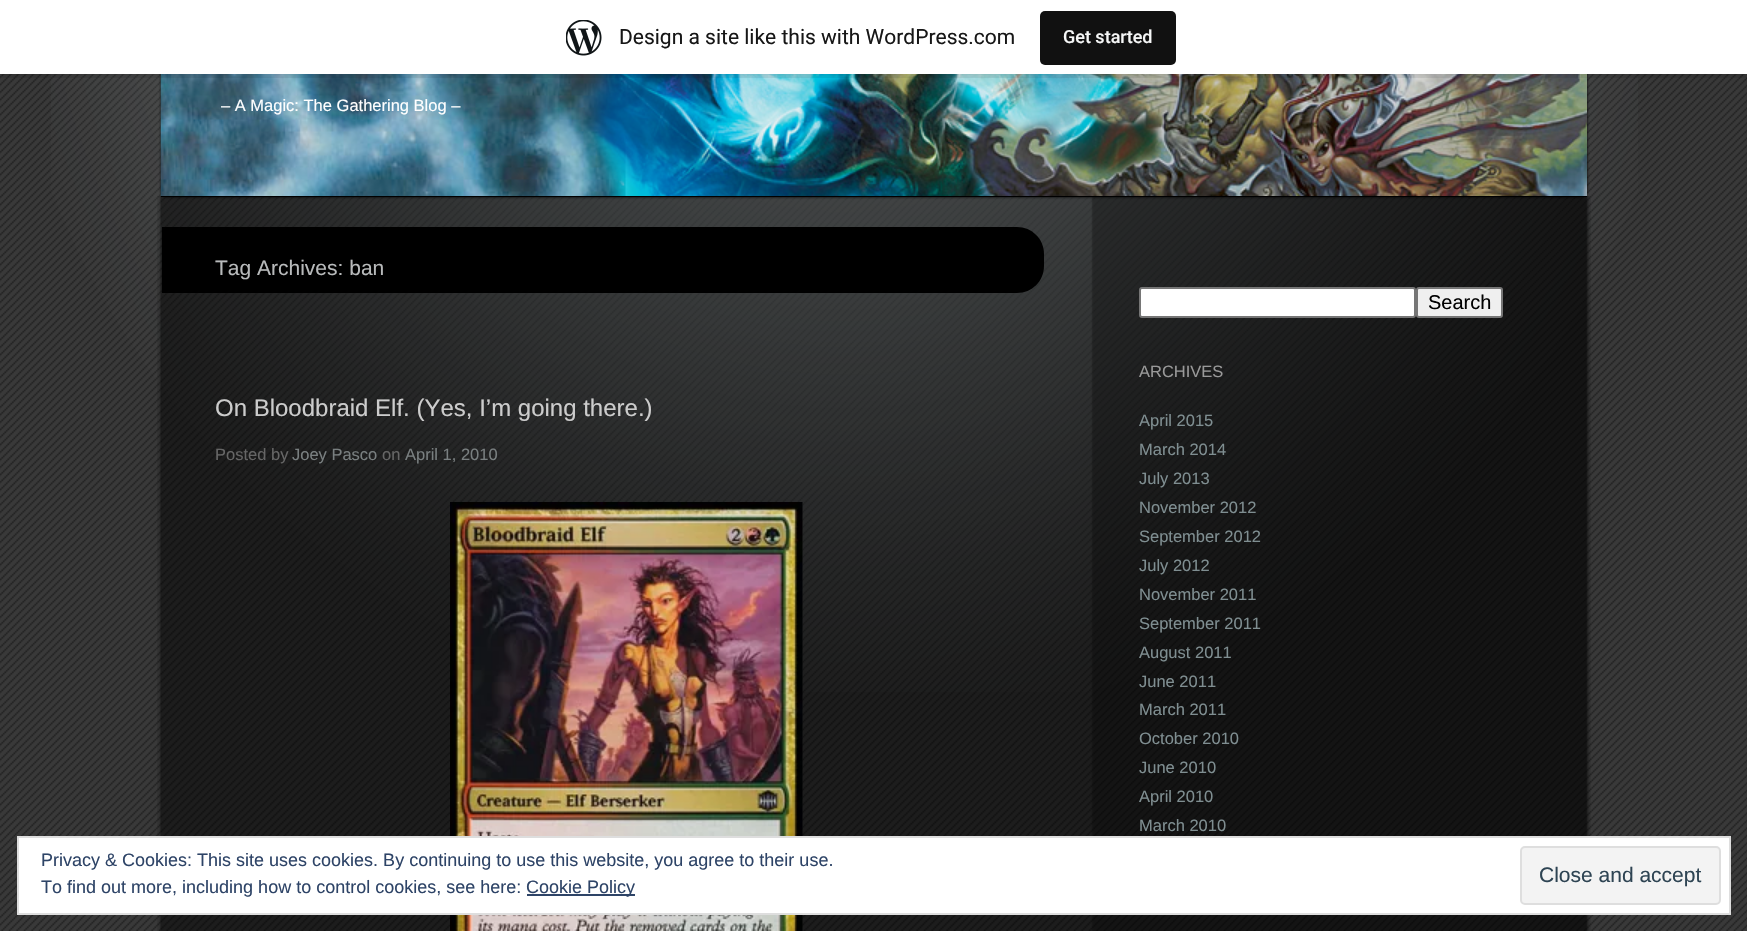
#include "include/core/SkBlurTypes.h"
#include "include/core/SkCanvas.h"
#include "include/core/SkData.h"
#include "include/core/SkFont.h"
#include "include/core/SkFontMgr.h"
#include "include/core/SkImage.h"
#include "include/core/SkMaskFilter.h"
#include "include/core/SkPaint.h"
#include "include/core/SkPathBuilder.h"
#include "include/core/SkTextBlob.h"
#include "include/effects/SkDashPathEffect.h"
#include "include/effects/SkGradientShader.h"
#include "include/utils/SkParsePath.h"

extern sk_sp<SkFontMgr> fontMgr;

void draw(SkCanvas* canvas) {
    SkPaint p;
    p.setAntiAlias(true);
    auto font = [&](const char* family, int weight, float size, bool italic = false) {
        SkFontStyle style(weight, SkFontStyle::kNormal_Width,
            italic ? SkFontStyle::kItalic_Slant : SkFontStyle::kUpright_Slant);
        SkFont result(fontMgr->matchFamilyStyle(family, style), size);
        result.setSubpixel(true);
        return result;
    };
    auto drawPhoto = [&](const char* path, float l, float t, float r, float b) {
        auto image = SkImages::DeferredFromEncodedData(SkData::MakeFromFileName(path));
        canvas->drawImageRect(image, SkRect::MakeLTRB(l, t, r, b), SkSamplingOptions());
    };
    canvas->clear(0xFFFFFFFF);
    drawPhoto("media/1.png", 0, 74, 1747, 931);
    drawPhoto("media/3.png", 51, 74, 1638, 692);
    drawPhoto("media/5.png", 157, 196, 1591, 931);
    p.setColor(0xFF000000);
    p.setMaskFilter(SkMaskFilter::MakeBlur(kNormal_SkBlurStyle, 1.5f));
    canvas->drawRoundRect(SkRect::MakeLTRB(161, -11, 1587, 197), 6, 6, p);
    p.setMaskFilter(nullptr);
    drawPhoto("media/4.png", 160, 74, 1587, 196);
    p.setColor(0x0D000000);
    p.setMaskFilter(SkMaskFilter::MakeBlur(kNormal_SkBlurStyle, 1.5f));
    canvas->drawRect(SkRect::MakeLTRB(0, 2, 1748, 75), p);
    p.setMaskFilter(nullptr);
    p.setColor(0x14000000);
    canvas->drawPath(SkPathBuilder().moveTo(2, 74).lineTo(2, 78).lineTo(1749, 78).lineTo(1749, 5).lineTo(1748, 5).lineTo(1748, 74).close().detach(), p);
    p.setColor(0xFFFFFFFF);
    canvas->drawRect(SkRect::MakeLTRB(0, 0, 1747, 74), p);
    drawPhoto("media/2.png", 566, 20, 602, 56);
    auto font1 = font("Roboto", 400, 21);
    p.setColor(0xFF171717);
    canvas->drawString("Design a site like this with WordPress.com", 619, 44, font1, p);
    p.setColor(0xFF111111);
    canvas->drawRoundRect(SkRect::MakeLTRB(1040, 11, 1176, 65), 5, 5, p);
    auto font2 = font("Roboto", 500, 18);
    p.setColor(0xFFF6F7F7);
    canvas->drawString("Get started", 1063, 43, font2, p);
    p.setColor(0xFF000000);
    canvas->drawRect(SkRect::MakeLTRB(161, 196, 1587, 197), p);
    auto font3 = font("Liberation Sans", 400, 16.5f);
    p.setColor(0xFFFFFFFF);
    canvas->drawString("– A Magic: The Gathering Blog –", 221, 111, font3, p);
    p.setColor(0xFF000000);
    canvas->drawPath(SkPathBuilder().moveTo(162, 227).lineTo(1017, 227).cubicTo(1032, 227, 1044, 239, 1044, 254).lineTo(1044, 266).cubicTo(1044, 281, 1032, 293, 1017, 293).lineTo(162, 293).close().detach(), p);
    auto font4 = font("Liberation Sans", 400, 21);
    p.setColor(0xFFB8BABB);
    canvas->drawString("Tag Archives: ban", 215, 275, font4, p);
    auto font5 = font("Liberation Sans", 400, 24);
    p.setColor(0xFFCCCCCC);
    canvas->drawString("On Bloodbraid Elf. (Yes, I’m going there.)", 215, 416, font5, p);
    p.setColor(0xFF666666);
    canvas->drawString("Posted by", 215, 460, font3, p);
    p.setColor(0xFF797F80);
    canvas->drawString("Joey Pasco", 292, 460, font3, p);
    p.setColor(0xFF666666);
    canvas->drawString("on", 382, 460, font3, p);
    p.setColor(0xFF797F80);
    canvas->drawString("April 1, 2010", 405, 460, font3, p);
    drawPhoto("media/6.png", 450, 502, 803, 931);
    p.setColor(0xFFFFFFFF);
    canvas->drawRoundRect(SkRect::MakeLTRB(1140, 288, 1415, 317), 2, 2, p);
    p.setStyle(SkPaint::kStroke_Style);
    p.setStrokeWidth(2);
    p.setColor(0xFF767676);
    canvas->drawRoundRect(SkRect::MakeLTRB(1140, 288, 1415, 317), 2, 2, p);
    p.setStyle(SkPaint::kFill_Style);
    p.setColor(0xFFEFEFEF);
    canvas->drawRoundRect(SkRect::MakeLTRB(1417, 288, 1502, 317), 2, 2, p);
    p.setStyle(SkPaint::kStroke_Style);
    p.setColor(0xFF767676);
    canvas->drawRoundRect(SkRect::MakeLTRB(1417, 288, 1502, 317), 2, 2, p);
    auto font6 = font("Liberation Sans", 400, 20);
    p.setStyle(SkPaint::kFill_Style);
    p.setColor(0xFF000000);
    canvas->drawString("Search", 1428, 309, font6, p);
    p.setColor(0xFF999999);
    canvas->drawString("ARCHIVES", 1139, 377, font3, p);
    p.setColor(0xFF7F8E91);
    {
        const struct { const char* s; float x, y; } items[] = {
            {"April 2015", 1139, 426},
            {"March 2014", 1139, 455},
            {"July 2013", 1139, 484},
            {"November 2012", 1139, 513},
            {"September 2012", 1139, 542},
            {"July 2012", 1139, 571},
            {"November 2011", 1139, 600},
            {"September 2011", 1139, 629},
            {"August 2011", 1139, 658},
            {"June 2011", 1139, 687},
            {"March 2011", 1139, 715},
            {"October 2010", 1139, 744},
            {"June 2010", 1139, 773},
            {"April 2010", 1139, 802},
            {"March 2010", 1139, 831},
        };
        for (auto [s, x, y] : items) {
            canvas->drawString(s, x, y, font3, p);
        }
    }
    p.setColor(0xFFFFFFFF);
    canvas->drawRect(SkRect::MakeLTRB(18, 837, 1730, 914), p);
    p.setStyle(SkPaint::kStroke_Style);
    p.setColor(0xFFDEDEDE);
    canvas->drawRect(SkRect::MakeLTRB(18, 837, 1730, 914), p);
    auto font7 = font("Liberation Sans", 400, 18);
    p.setStyle(SkPaint::kFill_Style);
    p.setColor(0xFF2E4467);
    canvas->drawString("Privacy & Cookies: This site uses cookies. By continuing to use this website, you agree to their use.", 41, 866, font7, p);
    canvas->drawString("To find out more, including how to control cookies, see here:", 41, 893, font7, p);
    canvas->drawRect(SkRect::MakeLTRB(527, 894, 635, 896), p);
    canvas->drawString("Cookie Policy", 526, 893, font7, p);
    p.setColor(0xFFF3F3F3);
    canvas->drawRoundRect(SkRect::MakeLTRB(1521, 847, 1720, 904), 4, 4, p);
    p.setStyle(SkPaint::kStroke_Style);
    p.setColor(0xFFDEDEDE);
    canvas->drawRoundRect(SkRect::MakeLTRB(1521, 847, 1720, 904), 4, 4, p);
    p.setStyle(SkPaint::kFill_Style);
    p.setColor(0xFF2E4453);
    canvas->drawString("Close and accept", 1539, 882, font4, p);
}
